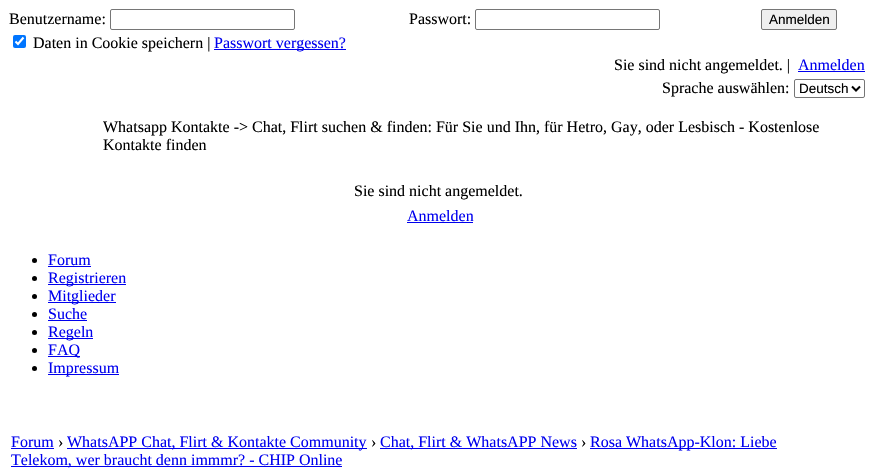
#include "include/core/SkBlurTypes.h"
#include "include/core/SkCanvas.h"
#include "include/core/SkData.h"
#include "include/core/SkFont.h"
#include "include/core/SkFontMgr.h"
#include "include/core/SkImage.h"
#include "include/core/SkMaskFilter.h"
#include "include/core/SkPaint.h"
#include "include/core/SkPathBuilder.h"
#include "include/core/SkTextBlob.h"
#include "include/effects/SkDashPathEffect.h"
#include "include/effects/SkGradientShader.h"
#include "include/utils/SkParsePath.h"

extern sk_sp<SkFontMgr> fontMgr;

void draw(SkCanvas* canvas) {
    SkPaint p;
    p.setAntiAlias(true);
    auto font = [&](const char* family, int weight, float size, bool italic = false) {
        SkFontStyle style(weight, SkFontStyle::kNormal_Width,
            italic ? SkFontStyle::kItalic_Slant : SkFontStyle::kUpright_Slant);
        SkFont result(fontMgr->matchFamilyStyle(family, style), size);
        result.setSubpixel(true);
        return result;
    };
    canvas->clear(0xFFFFFFFF);
    auto font1 = font("Liberation Serif", 400, 16);
    p.setColor(0xFF000000);
    canvas->drawString("Benutzername:", 9, 24, font1, p);
    p.setStyle(SkPaint::kStroke_Style);
    p.setStrokeWidth(1);
    p.setColor(0xFF767676);
    canvas->drawRoundRect(SkRect::MakeLTRB(110.5f, 9.5f, 294.5f, 29.5f), 1.5f, 1.5f, p);
    p.setStyle(SkPaint::kFill_Style);
    p.setColor(0xFF000000);
    canvas->drawString("Passwort:", 409, 24, font1, p);
    p.setStyle(SkPaint::kStroke_Style);
    p.setColor(0xFF767676);
    canvas->drawRoundRect(SkRect::MakeLTRB(475.5f, 9.5f, 659.5f, 29.5f), 1.5f, 1.5f, p);
    p.setStyle(SkPaint::kFill_Style);
    p.setColor(0xFFEFEFEF);
    canvas->drawRoundRect(SkRect::MakeLTRB(761.5f, 9.5f, 836.5f, 29.5f), 1.5f, 1.5f, p);
    p.setStyle(SkPaint::kStroke_Style);
    p.setColor(0xFF767676);
    canvas->drawRoundRect(SkRect::MakeLTRB(761.5f, 9.5f, 836.5f, 29.5f), 1.5f, 1.5f, p);
    auto font2 = font("Liberation Sans", 400, 13.5f);
    p.setStyle(SkPaint::kFill_Style);
    p.setColor(0xFF000000);
    canvas->drawString("Anmelden", 769, 24, font2, p);
    p.setColor(0xFF0075FF);
    canvas->drawRoundRect(SkRect::MakeLTRB(13, 35, 26, 48), 2, 2, p);
    p.setStyle(SkPaint::kStroke_Style);
    p.setStrokeWidth(2.1f);
    p.setColor(0xFFFFFFFF);
    canvas->drawPath(SkPathBuilder().moveTo(15.5f, 41.5f).lineTo(18, 44).lineTo(23.5f, 37.5f).detach(), p);
    p.setStyle(SkPaint::kFill_Style);
    p.setColor(0xFF000000);
    canvas->drawString("Daten in Cookie speichern |", 33, 48, font1, p);
    p.setColor(0xFF0000EE);
    canvas->drawRect(SkRect::MakeLTRB(214, 49, 346, 50), p);
    canvas->drawString("Passwort vergessen?", 214, 48, font1, p);
    p.setColor(0xFF000000);
    canvas->drawString("Sie sind nicht angemeldet. |", 614, 70, font1, p);
    p.setColor(0xFF0000EE);
    canvas->drawString("Anmelden", 798, 70, font1, p);
    canvas->drawRect(SkRect::MakeLTRB(798, 71, 865, 72), p);
    p.setColor(0xFF000000);
    canvas->drawString("Sprache auswählen:", 662, 93, font1, p);
    p.setStyle(SkPaint::kStroke_Style);
    p.setStrokeWidth(1);
    p.setColor(0xFF767676);
    canvas->drawRoundRect(SkRect::MakeLTRB(794.5f, 79.5f, 864.5f, 97.5f), 1.5f, 1.5f, p);
    p.setStrokeWidth(2);
    p.setColor(0xFF000000);
    canvas->drawPath(SkPathBuilder().moveTo(852, 86.5f).lineTo(856, 90.5f).lineTo(860, 86.5f).detach(), p);
    p.setStyle(SkPaint::kFill_Style);
    canvas->drawString("Deutsch", 799, 93, font2, p);
    {
        const struct { const char* s; float x, y; } items[] = {
            {"Whatsapp Kontakte -> Chat, Flirt suchen & finden: Für Sie und Ihn, für Hetro, Gay, oder Lesbisch - Kostenlose", 103, 132},
            {"Kontakte finden", 103, 150},
            {"Sie sind nicht angemeldet.", 354, 196},
        };
        for (auto [s, x, y] : items) {
            canvas->drawString(s, x, y, font1, p);
        }
    }
    p.setColor(0xFF0000EE);
    canvas->drawString("Anmelden", 407, 221, font1, p);
    canvas->drawRect(SkRect::MakeLTRB(407, 222, 473, 223), p);
    p.setColor(0xFF000000);
    canvas->drawCircle(34.5f, 260.5f, 2.5f, p);
    p.setColor(0xFF0000EE);
    canvas->drawString("Forum", 48, 265, font1, p);
    canvas->drawRect(SkRect::MakeLTRB(48, 266, 91, 267), p);
    p.setColor(0xFF000000);
    canvas->drawCircle(34.5f, 278.5f, 2.5f, p);
    p.setColor(0xFF0000EE);
    canvas->drawRect(SkRect::MakeLTRB(48, 284, 126, 285), p);
    canvas->drawString("Registrieren", 48, 283, font1, p);
    p.setColor(0xFF000000);
    canvas->drawCircle(34.5f, 296.5f, 2.5f, p);
    p.setColor(0xFF0000EE);
    canvas->drawRect(SkRect::MakeLTRB(48, 302, 116, 303), p);
    canvas->drawString("Mitglieder", 48, 301, font1, p);
    p.setColor(0xFF000000);
    canvas->drawCircle(34.5f, 314.5f, 2.5f, p);
    p.setColor(0xFF0000EE);
    canvas->drawString("Suche", 48, 319, font1, p);
    canvas->drawRect(SkRect::MakeLTRB(48, 320, 87, 321), p);
    p.setColor(0xFF000000);
    canvas->drawCircle(34.5f, 332.5f, 2.5f, p);
    p.setColor(0xFF0000EE);
    canvas->drawRect(SkRect::MakeLTRB(48, 338, 93, 339), p);
    canvas->drawString("Regeln", 48, 337, font1, p);
    p.setColor(0xFF000000);
    canvas->drawCircle(34.5f, 350.5f, 2.5f, p);
    p.setColor(0xFF0000EE);
    canvas->drawRect(SkRect::MakeLTRB(48, 356, 80, 357), p);
    canvas->drawString("FAQ", 48, 355, font1, p);
    p.setColor(0xFF000000);
    canvas->drawCircle(34.5f, 368.5f, 2.5f, p);
    p.setColor(0xFF0000EE);
    canvas->drawRect(SkRect::MakeLTRB(48, 374, 119, 375), p);
    canvas->drawString("Impressum", 48, 373, font1, p);
    canvas->drawString("Forum", 11, 447, font1, p);
    canvas->drawRect(SkRect::MakeLTRB(11, 448, 54, 449), p);
    p.setColor(0xFF000000);
    canvas->drawString("›", 58, 447, font1, p);
    p.setColor(0xFF0000EE);
    canvas->drawRect(SkRect::MakeLTRB(67, 448, 367, 449), p);
    canvas->drawString("WhatsAPP Chat, Flirt & Kontakte Community", 67, 447, font1, p);
    p.setColor(0xFF000000);
    canvas->drawString("›", 371, 447, font1, p);
    p.setColor(0xFF0000EE);
    canvas->drawRect(SkRect::MakeLTRB(380, 448, 577, 449), p);
    canvas->drawString("Chat, Flirt & WhatsAPP News", 380, 447, font1, p);
    p.setColor(0xFF000000);
    canvas->drawString("›", 581, 447, font1, p);
    p.setColor(0xFF0000EE);
    canvas->drawRect(SkRect::MakeLTRB(590, 448, 777, 449), p);
    canvas->drawString("Rosa WhatsApp-Klon: Liebe", 590, 447, font1, p);
    canvas->drawRect(SkRect::MakeLTRB(11, 466, 342, 467), p);
    canvas->drawString("Telekom, wer braucht denn immmr? - CHIP Online", 11, 465, font1, p);
}
